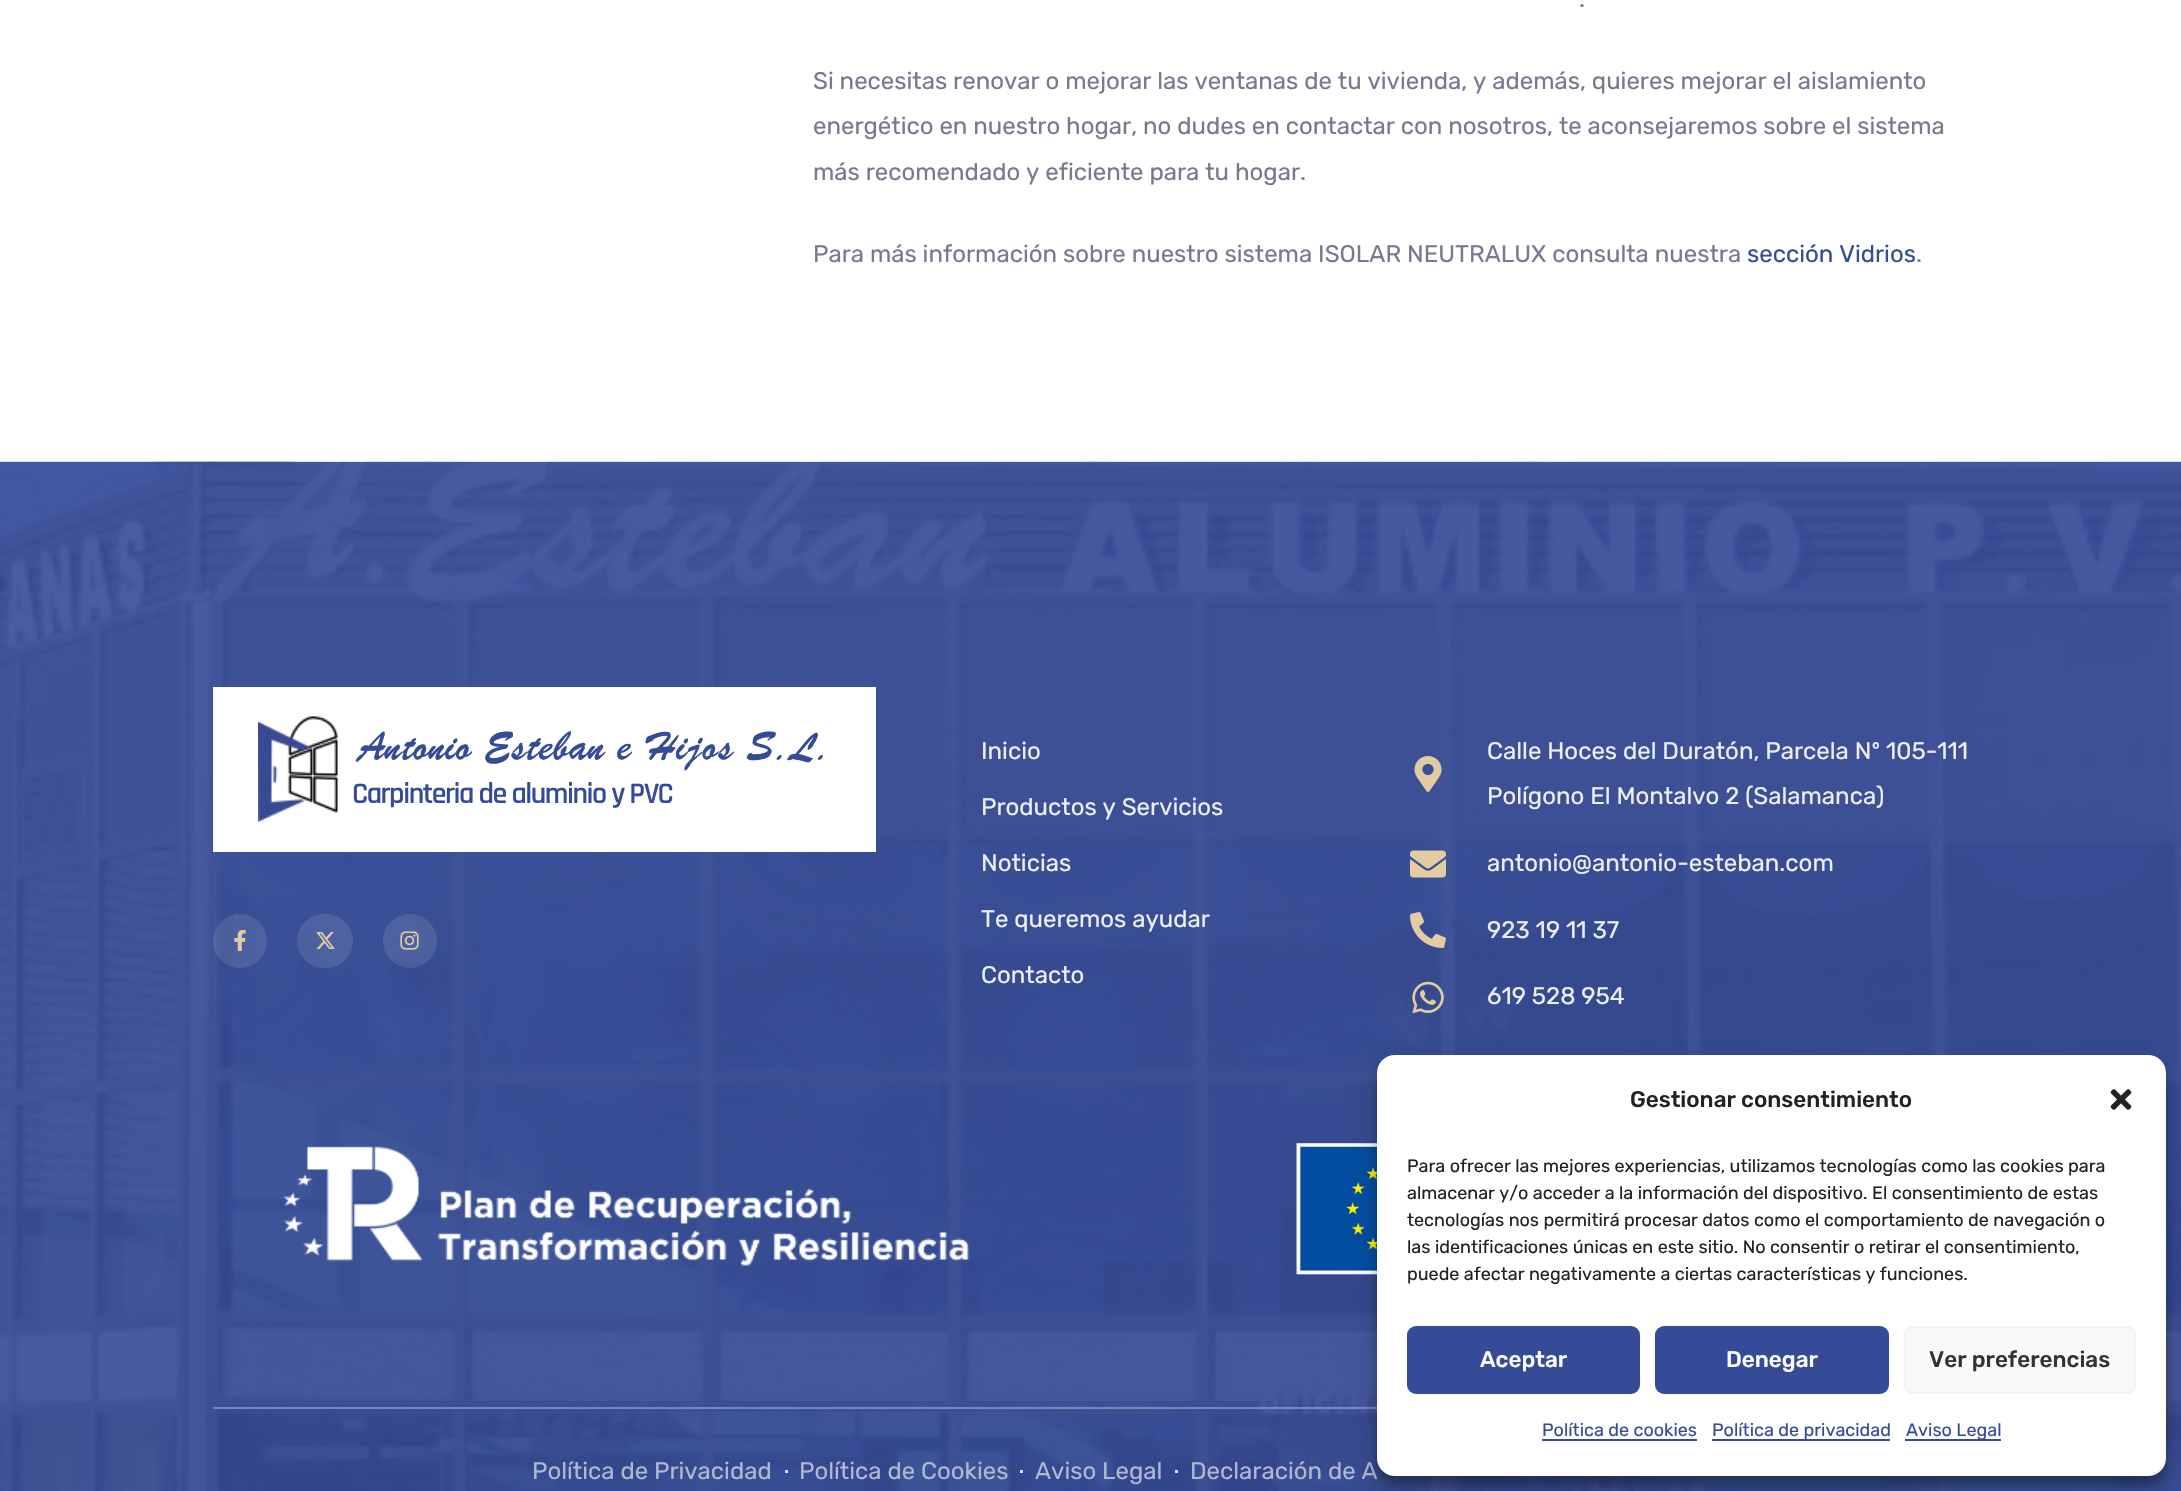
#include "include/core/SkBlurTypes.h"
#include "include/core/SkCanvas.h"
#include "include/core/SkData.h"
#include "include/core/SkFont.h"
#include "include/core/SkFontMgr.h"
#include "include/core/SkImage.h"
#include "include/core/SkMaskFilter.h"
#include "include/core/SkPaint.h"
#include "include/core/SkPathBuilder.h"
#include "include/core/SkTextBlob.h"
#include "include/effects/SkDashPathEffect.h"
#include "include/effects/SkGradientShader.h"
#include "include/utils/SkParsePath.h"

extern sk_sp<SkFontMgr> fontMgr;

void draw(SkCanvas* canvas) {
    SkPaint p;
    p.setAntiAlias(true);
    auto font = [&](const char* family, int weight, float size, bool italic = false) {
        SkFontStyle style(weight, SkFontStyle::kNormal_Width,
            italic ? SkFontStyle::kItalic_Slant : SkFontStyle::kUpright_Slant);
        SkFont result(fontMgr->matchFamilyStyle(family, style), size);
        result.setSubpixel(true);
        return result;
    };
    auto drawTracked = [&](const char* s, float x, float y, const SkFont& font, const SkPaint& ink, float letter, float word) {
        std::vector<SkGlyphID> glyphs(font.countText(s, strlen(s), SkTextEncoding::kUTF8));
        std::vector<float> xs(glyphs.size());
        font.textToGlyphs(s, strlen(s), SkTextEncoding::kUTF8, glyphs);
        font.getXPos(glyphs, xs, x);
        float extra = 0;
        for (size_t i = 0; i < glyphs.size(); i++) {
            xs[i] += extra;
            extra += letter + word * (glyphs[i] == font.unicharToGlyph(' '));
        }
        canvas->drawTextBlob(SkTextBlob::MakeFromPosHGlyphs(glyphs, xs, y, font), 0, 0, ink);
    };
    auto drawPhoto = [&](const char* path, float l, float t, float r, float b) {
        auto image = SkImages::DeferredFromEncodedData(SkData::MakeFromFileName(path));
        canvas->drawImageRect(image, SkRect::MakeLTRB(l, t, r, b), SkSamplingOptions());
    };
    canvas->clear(0xFFFFFFFF);
    auto font1 = font("Rubik", 400, 24);
    p.setColor(0xFF78798E);
    {
        const struct { const char* s; float x, y; } items[] = {
            {".", 1579, 7},
            {"Si necesitas renovar o mejorar las ventanas de tu vivienda, y además, quieres mejorar el aislamiento", 813, 89},
            {"energético en nuestro hogar, no dudes en contactar con nosotros, te aconsejaremos sobre el sistema", 813, 134},
            {"más recomendado y eficiente para tu hogar.", 813, 180},
            {"Para más información sobre nuestro sistema ISOLAR NEUTRALUX consulta nuestra", 813, 262},
        };
        for (auto [s, x, y] : items) {
            canvas->drawString(s, x, y, font1, p);
        }
    }
    p.setColor(0xFF364B98);
    canvas->drawString("sección Vidrios", 1747, 262, font1, p);
    p.setColor(0xFF78798E);
    canvas->drawString(".", 1916, 262, font1, p);
    drawPhoto("media/1.png", 0, 461, 2181, 1491);
    p.setColor(0xFFFFFFFF);
    canvas->drawRect(SkRect::MakeLTRB(213, 687, 876, 852), p);
    drawPhoto("media/2.png", 258, 716, 338, 822);
    auto font2 = font("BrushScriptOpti", 400, 42);
    p.setColor(0xFF364B98);
    drawTracked("Antonio Esteban e Hijos S.L.", 352, 759, font2, p, 1.2f, 0);
    auto font3 = font("Rajdhani", 600, 30);
    drawTracked("Carpinteria de aluminio y PVC", 352, 803, font3, p, -1.5f, 0);
    p.setColor(0x1AFFFFFF);
    canvas->drawCircle(240, 941, 27, p);
    drawPhoto("media/3.png", 234, 930, 246, 951);
    canvas->drawRoundRect(SkRect::MakeLTRB(297, 914, 353, 968), 27, 27, p);
    drawPhoto("media/4.png", 316, 932, 335, 949);
    canvas->drawCircle(410, 941, 27, p);
    drawPhoto("media/5.png", 400, 931, 419, 950);
    p.setColor(0xFFECEEF4);
    {
        const struct { const char* s; float x, y; } items[] = {
            {"Inicio", 981, 759},
            {"Productos y Servicios", 981, 815},
            {"Noticias", 981, 871},
            {"Te queremos ayudar", 981, 927},
            {"Contacto", 981, 983},
        };
        for (auto [s, x, y] : items) {
            canvas->drawString(s, x, y, font1, p);
        }
    }
    drawPhoto("media/6.png", 1414, 756, 1442, 792);
    canvas->drawString("Calle Hoces del Duratón, Parcela Nº 105-111", 1487, 759, font1, p);
    canvas->drawString("Polígono El Montalvo 2 (Salamanca)", 1487, 804, font1, p);
    drawPhoto("media/7.png", 1410, 850, 1446, 878);
    canvas->drawString("antonio@antonio-esteban.com", 1487, 871, font1, p);
    drawPhoto("media/8.png", 1410, 912, 1446, 948);
    canvas->drawString("923 19 11 37", 1487, 938, font1, p);
    drawPhoto("media/9.png", 1412, 981, 1444, 1014);
    canvas->drawString("619 528 954", 1487, 1004, font1, p);
    drawPhoto("media/10.png", 283, 1146, 970, 1266);
    drawPhoto("media/11.png", 1296, 1143, 1377, 1275);
    p.setColor(0x4DFFFFFF);
    canvas->drawRect(SkRect::MakeLTRB(213, 1407, 1377, 1409), p);
    p.setColor(0xFFAFB7D3);
    canvas->drawString("Política de Privacidad", 532, 1479, font1, p);
    p.setColor(0xFFDDDDDD);
    canvas->drawRect(SkRect::MakeLTRB(785, 1470, 788, 1473), p);
    p.setColor(0xFFAFB7D3);
    canvas->drawString("Política de Cookies", 799, 1479, font1, p);
    p.setColor(0xFFDDDDDD);
    canvas->drawRect(SkRect::MakeLTRB(1020, 1470, 1023, 1473), p);
    p.setColor(0xFFAFB7D3);
    canvas->drawString("Aviso Legal", 1035, 1479, font1, p);
    p.setColor(0xFFDDDDDD);
    canvas->drawRect(SkRect::MakeLTRB(1175, 1470, 1178, 1473), p);
    p.setColor(0xFFAFB7D3);
    canvas->drawString("Declaración de A", 1190, 1479, font1, p);
    p.setColor(0x3B000000);
    p.setMaskFilter(SkMaskFilter::MakeBlur(kNormal_SkBlurStyle, 4.5f));
    canvas->drawRoundRect(SkRect::MakeLTRB(1377, 1064, 2166, 1485), 18, 18, p);
    p.setMaskFilter(nullptr);
    p.setColor(0x30000000);
    p.setMaskFilter(SkMaskFilter::MakeBlur(kNormal_SkBlurStyle, 15));
    canvas->drawRoundRect(SkRect::MakeLTRB(1377, 1070, 2166, 1491), 18, 18, p);
    p.setMaskFilter(nullptr);
    p.setColor(0xFFFFFFFF);
    canvas->drawRoundRect(SkRect::MakeLTRB(1377, 1055, 2166, 1476), 18, 18, p);
    auto font4 = font("Rubik", 500, 22.5f);
    p.setColor(0xFF222222);
    canvas->drawString("Gestionar consentimiento", 1630, 1107, font4, p);
    drawPhoto("media/12.png", 2110, 1089, 2132, 1110);
    auto font5 = font("Rubik", 400, 18);
    {
        const struct { const char* s; float x, y; } items[] = {
            {"Para ofrecer las mejores experiencias, utilizamos tecnologías como las cookies para", 1407, 1172},
            {"almacenar y/o acceder a la información del dispositivo. El consentimiento de estas", 1407, 1199},
            {"tecnologías nos permitirá procesar datos como el comportamiento de navegación o", 1407, 1226},
            {"las identificaciones únicas en este sitio. No consentir o retirar el consentimiento,", 1407, 1253},
            {"puede afectar negativamente a ciertas características y funciones.", 1407, 1280},
        };
        for (auto [s, x, y] : items) {
            canvas->drawString(s, x, y, font5, p);
        }
    }
    p.setColor(0xFF364B98);
    canvas->drawRoundRect(SkRect::MakeLTRB(1408, 1327, 1639, 1393), 8, 8, p);
    p.setStyle(SkPaint::kStroke_Style);
    p.setStrokeWidth(2);
    canvas->drawRoundRect(SkRect::MakeLTRB(1408, 1327, 1639, 1393), 8, 8, p);
    p.setStyle(SkPaint::kFill_Style);
    p.setColor(0xFFFFFFFF);
    canvas->drawString("Aceptar", 1480, 1367, font4, p);
    p.setColor(0xFF364B98);
    canvas->drawRoundRect(SkRect::MakeLTRB(1656, 1327, 1888, 1393), 8, 8, p);
    p.setStyle(SkPaint::kStroke_Style);
    canvas->drawRoundRect(SkRect::MakeLTRB(1656, 1327, 1888, 1393), 8, 8, p);
    p.setStyle(SkPaint::kFill_Style);
    p.setColor(0xFFFFFFFF);
    canvas->drawString("Denegar", 1726, 1367, font4, p);
    p.setColor(0xFFF9F9F9);
    canvas->drawRoundRect(SkRect::MakeLTRB(1905, 1327, 2135, 1393), 8, 8, p);
    p.setStyle(SkPaint::kStroke_Style);
    p.setColor(0xFFF2F2F2);
    canvas->drawRoundRect(SkRect::MakeLTRB(1905, 1327, 2135, 1393), 8, 8, p);
    p.setStyle(SkPaint::kFill_Style);
    p.setColor(0xFF333333);
    canvas->drawString("Ver preferencias", 1929, 1367, font4, p);
    p.setColor(0xFF364B98);
    canvas->drawString("Política de cookies", 1542, 1436, font5, p);
    canvas->drawRect(SkRect::MakeLTRB(1542, 1439, 1697, 1441), p);
    canvas->drawRect(SkRect::MakeLTRB(1712, 1439, 1890, 1441), p);
    canvas->drawString("Política de privacidad", 1712, 1436, font5, p);
    canvas->drawRect(SkRect::MakeLTRB(1905, 1439, 2001, 1441), p);
    canvas->drawString("Aviso Legal", 1906, 1436, font5, p);
}
